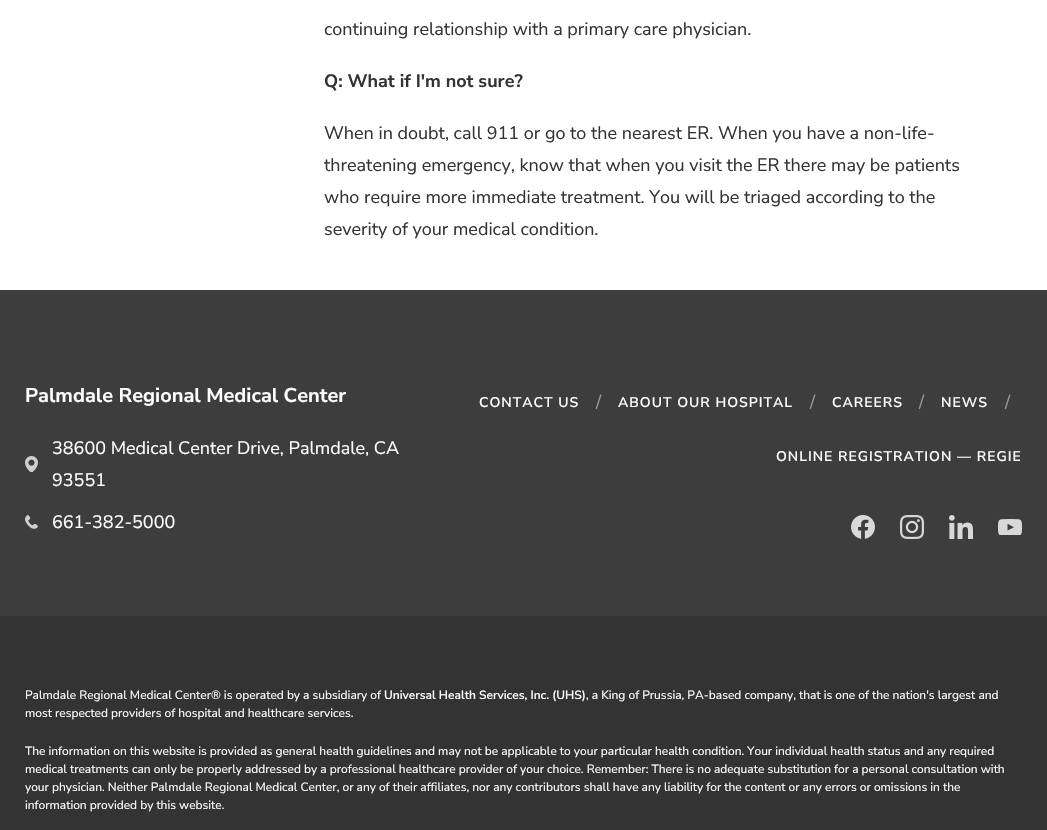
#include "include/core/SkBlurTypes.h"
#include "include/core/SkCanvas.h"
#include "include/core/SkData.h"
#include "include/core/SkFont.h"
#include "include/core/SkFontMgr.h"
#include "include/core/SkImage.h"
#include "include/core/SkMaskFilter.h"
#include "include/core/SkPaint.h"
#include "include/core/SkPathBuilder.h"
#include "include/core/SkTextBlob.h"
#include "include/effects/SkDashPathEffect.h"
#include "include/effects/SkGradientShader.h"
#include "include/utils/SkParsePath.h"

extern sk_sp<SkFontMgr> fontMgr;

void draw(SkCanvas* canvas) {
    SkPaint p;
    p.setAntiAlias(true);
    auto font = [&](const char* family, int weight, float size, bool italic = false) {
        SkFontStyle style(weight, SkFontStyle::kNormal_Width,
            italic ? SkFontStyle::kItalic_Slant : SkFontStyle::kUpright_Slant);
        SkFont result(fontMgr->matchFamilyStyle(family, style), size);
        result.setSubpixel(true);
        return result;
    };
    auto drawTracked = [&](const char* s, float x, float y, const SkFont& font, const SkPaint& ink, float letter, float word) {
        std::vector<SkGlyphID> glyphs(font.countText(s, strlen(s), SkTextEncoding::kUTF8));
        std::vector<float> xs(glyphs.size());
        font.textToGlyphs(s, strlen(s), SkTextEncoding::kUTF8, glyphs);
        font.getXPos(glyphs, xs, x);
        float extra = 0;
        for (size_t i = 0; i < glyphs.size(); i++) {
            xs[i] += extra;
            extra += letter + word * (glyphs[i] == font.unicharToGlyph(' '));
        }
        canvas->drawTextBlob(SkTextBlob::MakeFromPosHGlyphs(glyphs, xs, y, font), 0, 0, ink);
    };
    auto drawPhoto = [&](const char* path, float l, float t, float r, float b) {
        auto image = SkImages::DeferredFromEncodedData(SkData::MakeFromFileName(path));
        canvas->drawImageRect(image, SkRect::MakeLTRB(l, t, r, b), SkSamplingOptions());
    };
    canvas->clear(0xFFFFFFFF);
    auto font1 = font("Nunito Sans", 400, 18);
    p.setColor(0xFF333333);
    canvas->drawString("continuing relationship with a primary care physician.", 324, 35, font1, p);
    auto font2 = font("Nunito Sans", 700, 18);
    canvas->drawString("Q: What if I'm not sure?", 324, 87, font2, p);
    {
        const struct { const char* s; float x, y; } items[] = {
            {"When in doubt, call 911 or go to the nearest ER. When you have a non-life-", 324, 139},
            {"threatening emergency, know that when you visit the ER there may be patients", 324, 171},
            {"who require more immediate treatment. You will be triaged according to the", 324, 203},
            {"severity of your medical condition.", 324, 235},
        };
        for (auto [s, x, y] : items) {
            canvas->drawString(s, x, y, font1, p);
        }
    }
    p.setColor(0xFF3D3D3D);
    canvas->drawRect(SkRect::MakeLTRB(0, 290, 1047, 616), p);
    auto font3 = font("Nunito Sans", 700, 20);
    p.setColor(0xFFFFFFFF);
    canvas->drawString("Palmdale Regional Medical Center", 25, 402, font3, p);
    canvas->drawString("38600 Medical Center Drive, Palmdale, CA", 52, 454, font1, p);
    drawPhoto("media/1.png", 25, 456, 38, 472);
    canvas->drawString("93551", 52, 486, font1, p);
    drawPhoto("media/2.png", 25, 515, 38, 529);
    canvas->drawString("661-382-5000", 52, 528, font1, p);
    auto font4 = font("Nunito Sans", 600, 14);
    drawTracked("CONTACT US", 479, 407, font4, p, 1, 0);
    p.setColor(0xFF929AAB);
    canvas->drawString("/", 596, 408, font1, p);
    p.setColor(0xFFFFFFFF);
    drawTracked("ABOUT OUR HOSPITAL", 618, 407, font4, p, 1, 0);
    p.setColor(0xFF929AAB);
    canvas->drawString("/", 810, 408, font1, p);
    p.setColor(0xFFFFFFFF);
    drawTracked("CAREERS", 832, 407, font4, p, 1, 0);
    p.setColor(0xFF929AAB);
    canvas->drawString("/", 919, 408, font1, p);
    p.setColor(0xFFFFFFFF);
    drawTracked("NEWS", 941, 407, font4, p, 1, 0);
    p.setColor(0xFF929AAB);
    canvas->drawString("/", 1005, 408, font1, p);
    p.setColor(0xFFFFFFFF);
    drawTracked("ONLINE REGISTRATION — REGIE", 776, 461, font4, p, 1, 0);
    drawPhoto("media/3.png", 851, 515, 875, 539);
    drawPhoto("media/4.png", 900, 515, 924, 539);
    drawPhoto("media/5.png", 949, 515, 973, 539);
    drawPhoto("media/6.png", 998, 519, 1022, 535);
    p.setColor(0xFF333333);
    canvas->drawRect(SkRect::MakeLTRB(0, 616, 1047, 830), p);
    auto font5 = font("Nunito Sans", 400, 12);
    p.setColor(0xFFFFFFFF);
    canvas->drawString("Palmdale Regional Medical Center® is operated by a subsidiary of", 25, 699, font5, p);
    auto font6 = font("Nunito Sans", 600, 12);
    canvas->drawString("Universal Health Services, Inc. (UHS)", 384, 699, font6, p);
    {
        const struct { const char* s; float x, y; } items[] = {
            {", a King of Prussia, PA-based company, that is one of the nation's largest and", 586, 699},
            {"most respected providers of hospital and healthcare services.", 25, 717},
            {"The information on this website is provided as general health guidelines and may not be applicable to your particular health condition. Your individual health status and any required", 25, 755},
            {"medical treatments can only be properly addressed by a professional healthcare provider of your choice. Remember: There is no adequate substitution for a personal consultation with", 25, 773},
            {"your physician. Neither Palmdale Regional Medical Center, or any of their affiliates, nor any contributors shall have any liability for the content or any errors or omissions in the", 25, 791},
            {"information provided by this website.", 25, 809},
        };
        for (auto [s, x, y] : items) {
            canvas->drawString(s, x, y, font5, p);
        }
    }
}
